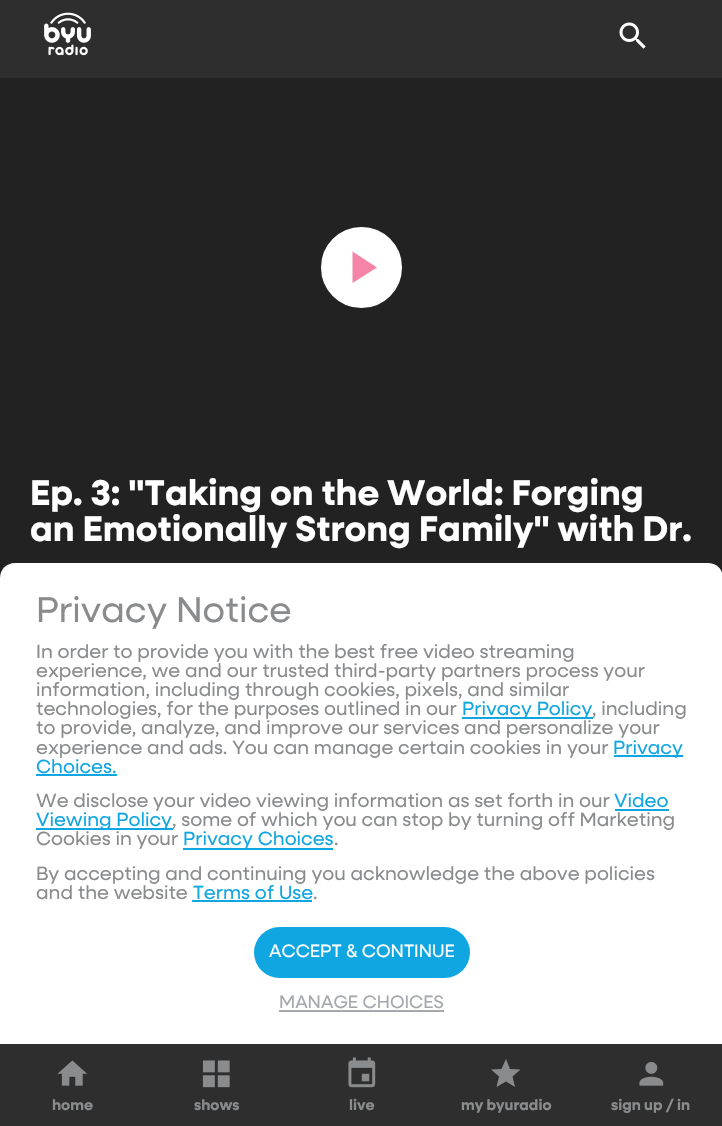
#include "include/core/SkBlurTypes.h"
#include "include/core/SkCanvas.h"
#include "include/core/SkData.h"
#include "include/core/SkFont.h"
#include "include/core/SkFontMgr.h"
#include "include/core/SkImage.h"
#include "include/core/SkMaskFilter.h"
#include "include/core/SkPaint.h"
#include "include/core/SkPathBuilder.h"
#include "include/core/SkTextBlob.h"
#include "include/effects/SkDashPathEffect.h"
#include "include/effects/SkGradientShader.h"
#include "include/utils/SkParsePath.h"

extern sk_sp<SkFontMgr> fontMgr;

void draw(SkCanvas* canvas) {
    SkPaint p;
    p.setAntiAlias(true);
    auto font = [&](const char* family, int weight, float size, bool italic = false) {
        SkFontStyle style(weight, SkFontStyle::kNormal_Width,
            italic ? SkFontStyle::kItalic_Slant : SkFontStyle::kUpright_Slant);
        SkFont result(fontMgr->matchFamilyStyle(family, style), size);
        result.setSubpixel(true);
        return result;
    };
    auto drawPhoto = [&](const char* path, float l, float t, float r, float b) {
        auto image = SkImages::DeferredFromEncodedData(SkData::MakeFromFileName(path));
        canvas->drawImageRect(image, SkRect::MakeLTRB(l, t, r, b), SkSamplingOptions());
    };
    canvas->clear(0xFF222222);
    p.setColor(0xFF2E2E2E);
    canvas->drawRect(SkRect::MakeLTRB(0, 0, 722, 78), p);
    drawPhoto("media/1.png", 44, 12, 91, 56);
    drawPhoto("media/2.png", 619, 22, 646, 49);
    p.setColor(0xFFFFFFFF);
    canvas->drawCircle(361.5f, 267.5f, 39.5f, p);
    p.setStyle(SkPaint::kStroke_Style);
    p.setStrokeWidth(2);
    canvas->drawCircle(361.5f, 267.5f, 39.5f, p);
    p.setStyle(SkPaint::kFill_Style);
    p.setColor(0xFFF485A7);
    canvas->drawPath(SkPathBuilder().moveTo(352.5f, 251.5f).lineTo(352.5f, 283).lineTo(377, 267.5f).close().detach(), p);
    auto font1 = font("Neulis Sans", 700, 36);
    p.setColor(0xFFFFFFFF);
    canvas->drawString("Ep. 3: \"Taking on the World: Forging", 30, 505, font1, p);
    canvas->drawString("an Emotionally Strong Family\" with Dr.", 30, 541, font1, p);
    canvas->drawPath(SkPathBuilder().moveTo(15, 563).lineTo(708, 563).cubicTo(716.5f, 563, 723, 569.5f, 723, 578).lineTo(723, 1044).lineTo(0, 1044).lineTo(0, 578).cubicTo(0, 569.5f, 6.5f, 563, 15, 563).close().detach(), p);
    auto font2 = font("Neulis Sans", 400, 36);
    p.setColor(0xFF898B8D);
    canvas->drawString("Privacy Notice", 36, 622, font2, p);
    auto font3 = font("Neulis Sans", 400, 19.2f);
    {
        const struct { const char* s; float x, y; } items[] = {
            {"In order to provide you with the best free video streaming", 36, 658},
            {"experience, we and our trusted third-party partners process your", 36, 677},
            {"information, including through cookies, pixels, and similar", 36, 696},
            {"technologies, for the purposes outlined in our", 36, 715},
        };
        for (auto [s, x, y] : items) {
            canvas->drawString(s, x, y, font3, p);
        }
    }
    p.setColor(0xFF0FA6E2);
    canvas->drawRect(SkRect::MakeLTRB(462, 717, 593, 719), p);
    canvas->drawString("Privacy Policy", 462, 715, font3, p);
    p.setColor(0xFF898B8D);
    {
        const struct { const char* s; float x, y; } items[] = {
            {", including", 592, 715},
            {"to provide, analyze, and improve our services and personalize your", 36, 734},
            {"experience and ads. You can manage certain cookies in your", 36, 754},
        };
        for (auto [s, x, y] : items) {
            canvas->drawString(s, x, y, font3, p);
        }
    }
    p.setColor(0xFF0FA6E2);
    canvas->drawRect(SkRect::MakeLTRB(614, 755, 683, 757), p);
    canvas->drawString("Privacy", 613, 754, font3, p);
    canvas->drawString("Choices.", 36, 773, font3, p);
    canvas->drawRect(SkRect::MakeLTRB(36, 774, 117, 776), p);
    p.setColor(0xFF898B8D);
    canvas->drawString("We disclose your video viewing information as set forth in our", 36, 807, font3, p);
    p.setColor(0xFF0FA6E2);
    canvas->drawString("Video", 614, 807, font3, p);
    canvas->drawRect(SkRect::MakeLTRB(615, 809, 669, 811), p);
    canvas->drawRect(SkRect::MakeLTRB(36, 828, 173, 830), p);
    canvas->drawString("Viewing Policy", 36, 826, font3, p);
    p.setColor(0xFF898B8D);
    canvas->drawString(", some of which you can stop by turning off Marketing", 172, 826, font3, p);
    canvas->drawString("Cookies in your", 36, 845, font3, p);
    p.setColor(0xFF0FA6E2);
    canvas->drawRect(SkRect::MakeLTRB(183, 848, 333, 850), p);
    canvas->drawString("Privacy Choices", 183, 845, font3, p);
    p.setColor(0xFF898B8D);
    {
        const struct { const char* s; float x, y; } items[] = {
            {".", 334, 845},
            {"By accepting and continuing you acknowledge the above policies", 36, 880},
            {"and the website", 36, 899},
        };
        for (auto [s, x, y] : items) {
            canvas->drawString(s, x, y, font3, p);
        }
    }
    p.setColor(0xFF0FA6E2);
    canvas->drawString("Terms of Use", 193, 899, font3, p);
    canvas->drawRect(SkRect::MakeLTRB(192, 900, 312, 902), p);
    p.setColor(0xFF898B8D);
    canvas->drawString(".", 313, 899, font3, p);
    p.setColor(0xFF0FA6E2);
    canvas->drawRoundRect(SkRect::MakeLTRB(254, 927, 470, 978), 25.5f, 25.5f, p);
    auto font4 = font("Neulis Sans", 400, 18);
    p.setColor(0xFFFFFFFF);
    canvas->drawString("ACCEPT & CONTINUE", 269, 957, font4, p);
    p.setColor(0xFFA5A8AC);
    canvas->drawString("MANAGE CHOICES", 279, 1008, font4, p);
    canvas->drawRect(SkRect::MakeLTRB(279, 1010, 444, 1012), p);
    p.setColor(0xFF2E2E2E);
    canvas->drawRect(SkRect::MakeLTRB(0, 1044, 722, 1126), p);
    drawPhoto("media/3.png", 57, 1060, 87, 1086);
    auto font5 = font("Neulis Sans", 700, 15);
    p.setColor(0xFF898B8D);
    canvas->drawString("home", 52, 1110, font5, p);
    drawPhoto("media/4.png", 202, 1060, 230, 1088);
    canvas->drawString("shows", 194, 1110, font5, p);
    drawPhoto("media/5.png", 348, 1057, 376, 1088);
    canvas->drawString("live", 349, 1110, font5, p);
    canvas->drawPath(SkPathBuilder().moveTo(506, 1081.5f).lineTo(515, 1087).lineTo(512.5f, 1076.5f).lineTo(520.5f, 1069.5f).lineTo(510, 1069).lineTo(506, 1059).lineTo(501.5f, 1069).lineTo(491, 1069.5f).lineTo(499, 1076.5f).lineTo(496.5f, 1087).close().detach(), p);
    canvas->drawString("my byuradio", 461, 1110, font5, p);
    drawPhoto("media/6.png", 639, 1062, 664, 1086);
    canvas->drawString("sign up / in", 611, 1110, font5, p);
}
